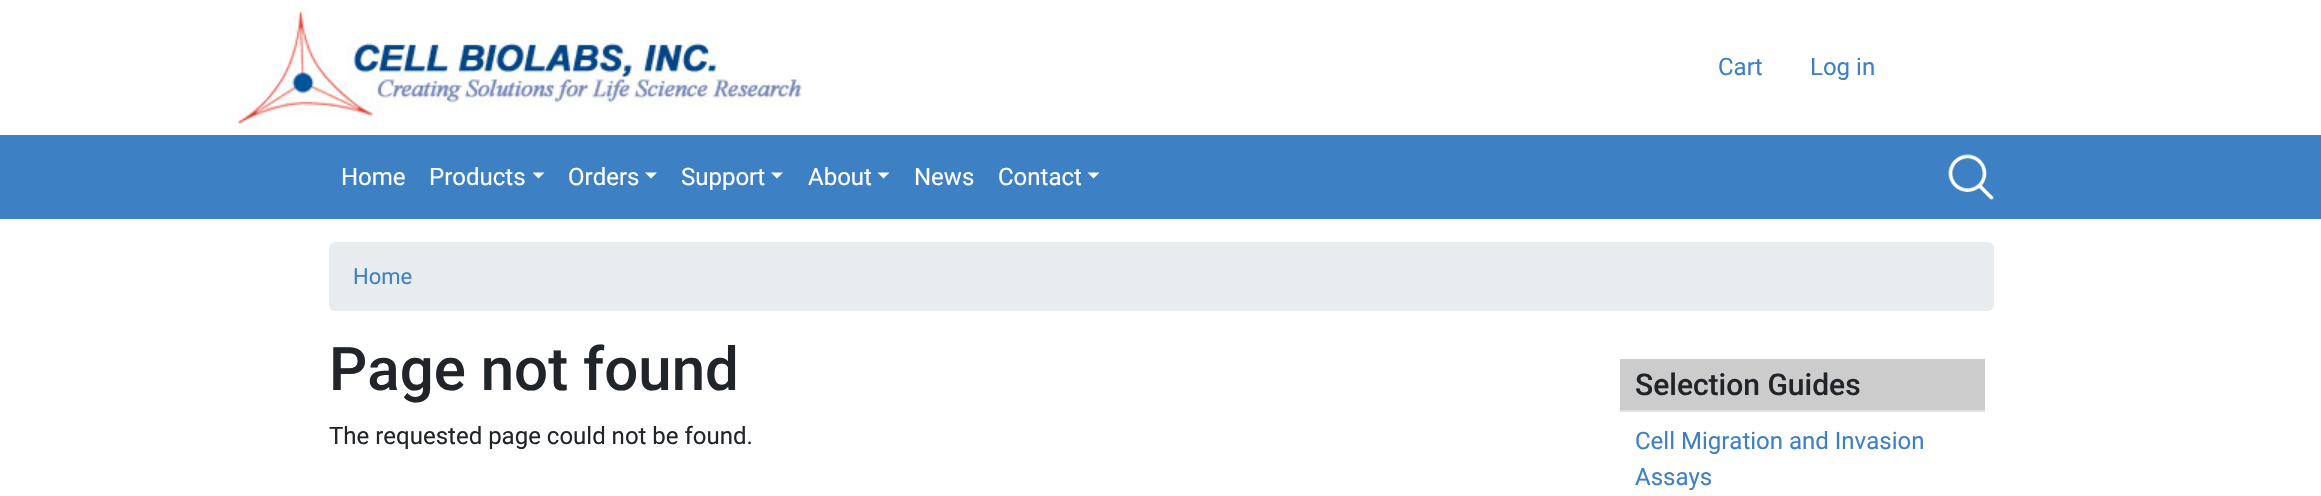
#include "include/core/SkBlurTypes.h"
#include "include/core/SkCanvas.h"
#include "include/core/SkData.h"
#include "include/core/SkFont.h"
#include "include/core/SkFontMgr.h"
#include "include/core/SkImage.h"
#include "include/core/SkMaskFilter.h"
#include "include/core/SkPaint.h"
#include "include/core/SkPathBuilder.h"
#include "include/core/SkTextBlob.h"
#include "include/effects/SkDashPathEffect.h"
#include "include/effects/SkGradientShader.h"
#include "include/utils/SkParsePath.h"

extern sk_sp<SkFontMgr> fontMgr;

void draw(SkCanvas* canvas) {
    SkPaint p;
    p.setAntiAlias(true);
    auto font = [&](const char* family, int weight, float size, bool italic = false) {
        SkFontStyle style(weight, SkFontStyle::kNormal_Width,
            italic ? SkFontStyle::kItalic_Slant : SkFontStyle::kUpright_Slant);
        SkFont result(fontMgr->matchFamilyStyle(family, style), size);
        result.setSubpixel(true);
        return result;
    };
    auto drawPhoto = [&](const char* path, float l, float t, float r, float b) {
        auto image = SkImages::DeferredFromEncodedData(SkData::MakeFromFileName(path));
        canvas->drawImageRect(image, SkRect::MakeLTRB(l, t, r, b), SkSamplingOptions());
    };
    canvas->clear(0xFFFFFFFF);
    drawPhoto("media/1.png", 238, 7, 802, 128);
    auto font1 = font("Roboto", 400, 24);
    p.setColor(0xFF3E80C4);
    canvas->drawString("Cart", 1718, 75, font1, p);
    canvas->drawString("Log in", 1810, 75, font1, p);
    canvas->drawRect(SkRect::MakeLTRB(0, 135, 2321, 219), p);
    p.setColor(0xFFFFFFFF);
    canvas->drawString("Home", 341, 185, font1, p);
    canvas->drawString("Products", 429, 185, font1, p);
    canvas->drawPath(SkPathBuilder().moveTo(532.5f, 172.5f).lineTo(544.5f, 172.5f).lineTo(538.5f, 178.5f).close().detach(), p);
    canvas->drawString("Orders", 568, 185, font1, p);
    canvas->drawPath(SkPathBuilder().moveTo(645, 172.5f).lineTo(657, 172.5f).lineTo(651, 178.5f).close().detach(), p);
    canvas->drawString("Support", 681, 185, font1, p);
    canvas->drawPath(SkPathBuilder().moveTo(771, 172.5f).lineTo(783, 172.5f).lineTo(777, 178.5f).close().detach(), p);
    canvas->drawString("About", 808, 185, font1, p);
    canvas->drawPath(SkPathBuilder().moveTo(877.5f, 172.5f).lineTo(889.5f, 172.5f).lineTo(883.5f, 178.5f).close().detach(), p);
    canvas->drawString("News", 914, 185, font1, p);
    canvas->drawString("Contact", 998, 185, font1, p);
    canvas->drawPath(SkPathBuilder().moveTo(1087.5f, 172.5f).lineTo(1099.5f, 172.5f).lineTo(1093.5f, 178.5f).close().detach(), p);
    drawPhoto("media/2.png", 1948, 154, 1994, 200);
    p.setColor(0xFFE9ECEF);
    canvas->drawRoundRect(SkRect::MakeLTRB(329, 242, 1994, 311), 6, 6, p);
    auto font2 = font("Roboto", 400, 22);
    p.setColor(0xFF3E80C4);
    canvas->drawString("Home", 353, 284, font2, p);
    auto font3 = font("Roboto", 500, 60);
    p.setColor(0xFF212529);
    canvas->drawString("Page not found", 329, 390, font3, p);
    canvas->drawString("The requested page could not be found.", 329, 444, font1, p);
    p.setColor(0xFFCCCCCC);
    canvas->drawRect(SkRect::MakeLTRB(1620, 359, 1985, 410), p);
    p.setColor(0xFFDEE2E6);
    canvas->drawRect(SkRect::MakeLTRB(1620, 410, 1985, 412), p);
    auto font4 = font("Roboto", 500, 30);
    p.setColor(0xFF212529);
    canvas->drawString("Selection Guides", 1635, 395, font4, p);
    p.setColor(0xFF3E80C4);
    canvas->drawString("Cell Migration and Invasion", 1635, 449, font1, p);
    canvas->drawString("Assays", 1635, 485, font1, p);
}
